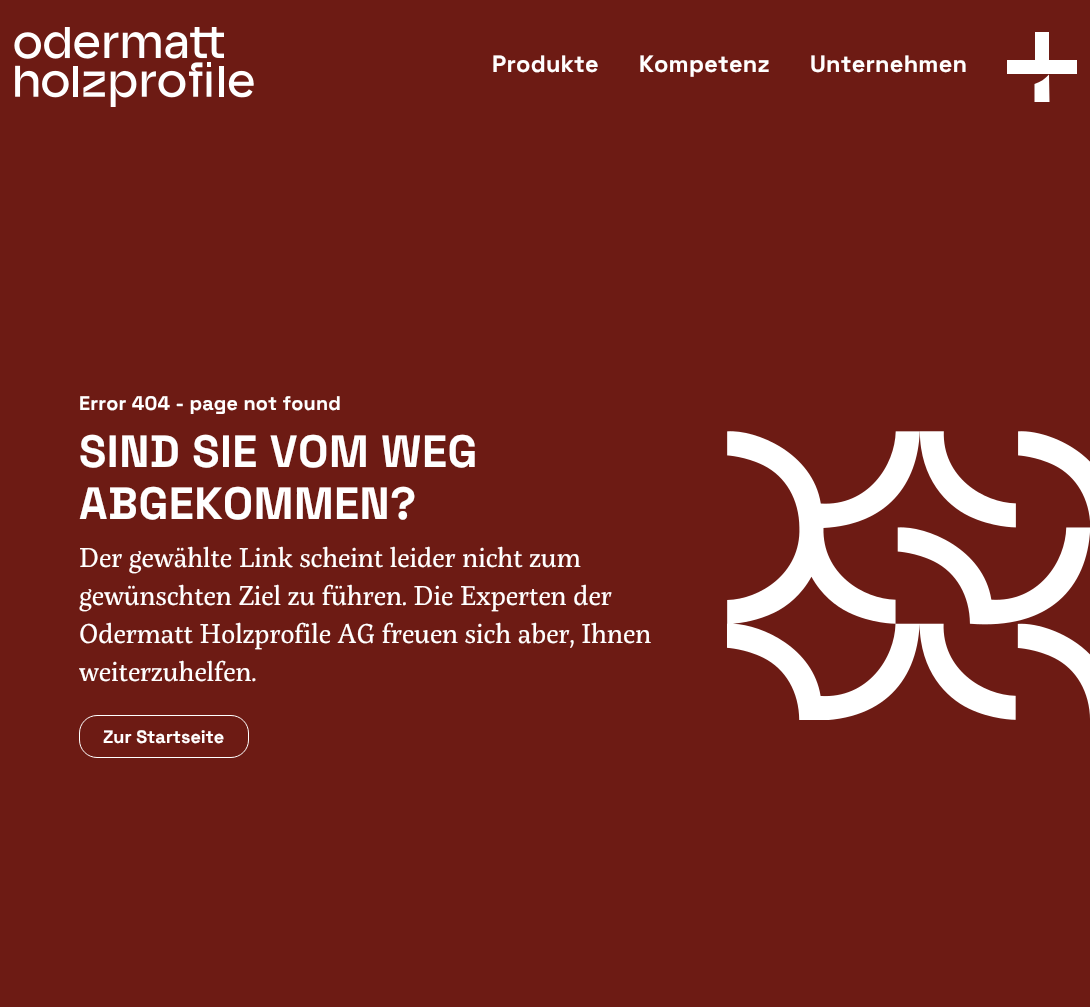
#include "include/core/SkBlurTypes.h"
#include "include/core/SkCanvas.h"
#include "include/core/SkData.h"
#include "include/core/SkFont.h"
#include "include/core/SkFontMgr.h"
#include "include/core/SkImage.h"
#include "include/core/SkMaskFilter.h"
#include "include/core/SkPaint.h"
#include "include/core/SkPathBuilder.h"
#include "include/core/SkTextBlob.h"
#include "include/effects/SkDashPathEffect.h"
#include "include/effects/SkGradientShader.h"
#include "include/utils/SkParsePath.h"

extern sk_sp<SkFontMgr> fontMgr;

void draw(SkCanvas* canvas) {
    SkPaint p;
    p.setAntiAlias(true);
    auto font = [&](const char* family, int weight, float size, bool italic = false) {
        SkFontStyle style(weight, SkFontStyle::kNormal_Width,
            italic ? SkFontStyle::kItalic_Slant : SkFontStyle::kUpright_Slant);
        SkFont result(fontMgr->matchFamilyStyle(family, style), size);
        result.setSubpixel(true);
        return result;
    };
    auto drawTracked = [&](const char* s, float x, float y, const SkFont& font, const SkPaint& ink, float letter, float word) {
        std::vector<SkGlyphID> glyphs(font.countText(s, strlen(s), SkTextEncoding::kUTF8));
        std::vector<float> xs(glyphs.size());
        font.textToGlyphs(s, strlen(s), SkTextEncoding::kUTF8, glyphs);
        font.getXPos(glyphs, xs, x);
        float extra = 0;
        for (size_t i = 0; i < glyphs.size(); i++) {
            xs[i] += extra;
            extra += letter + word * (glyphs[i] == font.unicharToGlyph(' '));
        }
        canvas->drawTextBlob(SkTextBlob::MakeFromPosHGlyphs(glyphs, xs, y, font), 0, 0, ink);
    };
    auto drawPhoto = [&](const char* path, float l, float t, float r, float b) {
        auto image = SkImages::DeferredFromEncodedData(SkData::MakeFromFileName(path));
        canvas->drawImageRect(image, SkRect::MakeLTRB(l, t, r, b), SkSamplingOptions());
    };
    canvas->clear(0xFF6D1B14);
    drawPhoto("media/1.png", 14, 27, 254, 107);
    auto font1 = font("Space Grotesk", 300, 23.5f);
    p.setColor(0xFFFFFFFF);
    {
        const struct { const char* s; float x, y; } items[] = {
            {"Produkte", 492, 72},
            {"Kompetenz", 639, 72},
            {"Unternehmen", 810, 72},
        };
        for (auto [s, x, y] : items) {
            drawTracked(s, x, y, font1, p, 0.25f, 0);
        }
    }
    canvas->drawPath(SkPathBuilder().moveTo(1035, 32).lineTo(1035, 60).lineTo(1007, 60).lineTo(1007, 74).lineTo(1077, 74).lineTo(1077, 60).lineTo(1049, 60).lineTo(1049, 32).close().detach(), p);
    canvas->drawPath(SkPathBuilder().moveTo(1049, 74.5f).lineTo(1049.5f, 102).lineTo(1034.5f, 102).lineTo(1034.5f, 84).cubicTo(1040.5f, 82, 1045, 79, 1049, 74.5f).detach(), p);
    auto font2 = font("Space Grotesk", 300, 19.75f);
    drawTracked("Error 404 - page not found", 79, 410, font2, p, 0.2f, 0);
    auto font3 = font("Space Grotesk", 300, 45);
    drawTracked("SIND SIE VOM WEG", 79, 467, font3, p, 0.5f, 0);
    drawTracked("ABGEKOMMEN?", 79, 519, font3, p, 0.5f, 0);
    auto font4 = font("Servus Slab", 400, 27);
    {
        const struct { const char* s; float x, y; } items[] = {
            {"Der gewählte Link scheint leider nicht zum", 79, 567},
            {"gewünschten Ziel zu führen. Die Experten der", 79, 605},
            {"Odermatt Holzprofile AG freuen sich aber, Ihnen", 79, 643},
            {"weiterzuhelfen.", 79, 681},
        };
        for (auto [s, x, y] : items) {
            canvas->drawString(s, x, y, font4, p);
        }
    }
    p.setStyle(SkPaint::kStroke_Style);
    p.setStrokeWidth(1);
    canvas->drawRoundRect(SkRect::MakeLTRB(79.5f, 715.5f, 248.5f, 757.5f), 17.5f, 17.5f, p);
    auto font5 = font("Space Grotesk", 300, 18);
    p.setStyle(SkPaint::kFill_Style);
    canvas->drawString("Zur Startseite", 103, 743, font5, p);
    drawPhoto("media/2.png", 727, 431, 1090, 720);
}
